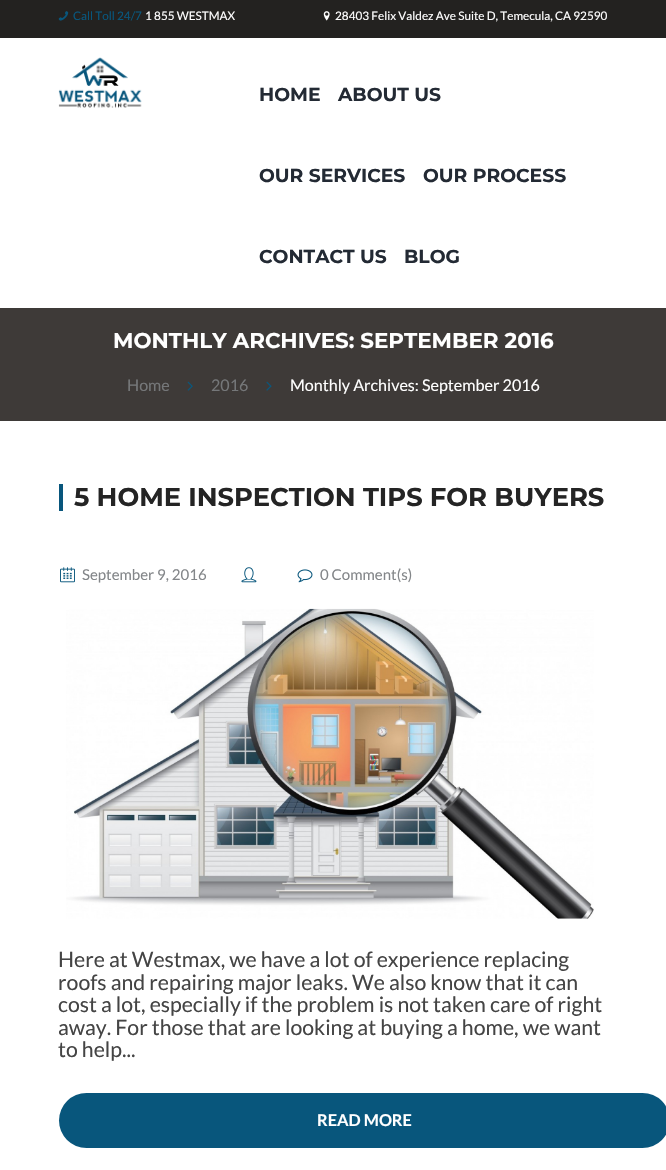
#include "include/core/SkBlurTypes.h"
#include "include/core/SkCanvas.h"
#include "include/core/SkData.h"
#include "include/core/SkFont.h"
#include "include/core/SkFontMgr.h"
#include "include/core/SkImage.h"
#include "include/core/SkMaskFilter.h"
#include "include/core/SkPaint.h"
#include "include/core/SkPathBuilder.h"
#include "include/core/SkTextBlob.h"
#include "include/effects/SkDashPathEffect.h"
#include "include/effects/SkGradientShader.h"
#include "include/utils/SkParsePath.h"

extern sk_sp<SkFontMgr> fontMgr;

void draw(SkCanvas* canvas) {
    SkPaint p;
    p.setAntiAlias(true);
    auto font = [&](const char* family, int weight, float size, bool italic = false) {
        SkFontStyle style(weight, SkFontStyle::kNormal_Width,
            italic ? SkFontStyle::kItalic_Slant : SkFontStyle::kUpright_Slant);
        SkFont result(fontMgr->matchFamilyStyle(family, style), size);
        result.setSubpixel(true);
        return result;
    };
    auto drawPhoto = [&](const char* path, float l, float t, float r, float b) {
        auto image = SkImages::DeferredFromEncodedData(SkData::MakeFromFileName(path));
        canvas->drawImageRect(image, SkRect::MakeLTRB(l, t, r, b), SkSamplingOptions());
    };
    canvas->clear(0xFFFFFFFF);
    p.setColor(0xFF232220);
    canvas->drawRect(SkRect::MakeLTRB(0, 0, 666, 38), p);
    drawPhoto("media/1.png", 58, 11, 69, 21);
    auto font1 = font("Lato", 400, 11.75f);
    p.setColor(0xFF08567C);
    canvas->drawString("Call Toll 24/7", 73, 20, font1, p);
    p.setColor(0xFFFFFFFF);
    canvas->drawString("1 855 WESTMAX", 145, 20, font1, p);
    drawPhoto("media/2.png", 323, 11, 330, 21);
    canvas->drawString("28403 Felix Valdez Ave Suite D, Temecula, CA 92590", 335, 20, font1, p);
    drawPhoto("media/3.png", 58, 57, 142, 108);
    auto font2 = font("Montserrat", 700, 18.75f);
    p.setColor(0xFF232A34);
    {
        const struct { const char* s; float x, y; } items[] = {
            {"HOME", 259, 101},
            {"ABOUT US", 338, 101},
            {"OUR SERVICES", 259, 182},
            {"OUR PROCESS", 423, 182},
            {"CONTACT US", 259, 263},
            {"BLOG", 404, 263},
        };
        for (auto [s, x, y] : items) {
            canvas->drawString(s, x, y, font2, p);
        }
    }
    p.setColor(0xFF3E3A38);
    canvas->drawRect(SkRect::MakeLTRB(0, 308, 666, 421), p);
    auto font3 = font("Montserrat", 700, 21.4f);
    p.setColor(0xFFFFFFFF);
    canvas->drawString("MONTHLY ARCHIVES: SEPTEMBER 2016", 113, 348, font3, p);
    auto font4 = font("Lato", 400, 16.1f);
    p.setColor(0xFF757779);
    canvas->drawString("Home", 127, 391, font4, p);
    drawPhoto("media/4.png", 187, 381, 193, 391);
    canvas->drawString("2016", 211, 391, font4, p);
    drawPhoto("media/5.png", 266, 381, 272, 391);
    p.setColor(0xFFFFFFFF);
    canvas->drawString("Monthly Archives: September 2016", 290, 391, font4, p);
    p.setColor(0xFF08567C);
    canvas->drawRect(SkRect::MakeLTRB(59, 484, 63, 511), p);
    auto font5 = font("Montserrat", 700, 25.75f);
    p.setColor(0xFF242424);
    canvas->drawString("5 HOME INSPECTION TIPS FOR BUYERS", 74, 506, font5, p);
    drawPhoto("media/6.png", 60, 567, 75, 583);
    auto font6 = font("Lato", 400, 15);
    p.setColor(0xFF838689);
    canvas->drawString("September 9, 2016", 82, 580, font6, p);
    drawPhoto("media/7.png", 241, 567, 257, 583);
    drawPhoto("media/8.png", 297, 569, 313, 583);
    canvas->drawString("0 Comment(s)", 320, 580, font6, p);
    drawPhoto("media/9.png", 66, 608, 594, 919);
    auto font7 = font("Lato", 400, 21.25f);
    p.setColor(0xFF444444);
    {
        const struct { const char* s; float x, y; } items[] = {
            {"Here at Westmax, we have a lot of experience replacing", 58, 967},
            {"roofs and repairing major leaks. We also know that it can", 58, 990},
            {"cost a lot, especially if the problem is not taken care of right", 58, 1012},
            {"away. For those that are looking at buying a home, we want", 58, 1035},
            {"to help...", 58, 1057},
        };
        for (auto [s, x, y] : items) {
            canvas->drawString(s, x, y, font7, p);
        }
    }
    p.setColor(0xFF08567C);
    canvas->drawRoundRect(SkRect::MakeLTRB(59, 1093, 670, 1148), 27.5f, 27.5f, p);
    auto font8 = font("Lato", 700, 16.25f);
    p.setColor(0xFFFFFFFF);
    canvas->drawString("READ MORE", 317, 1126, font8, p);
}
